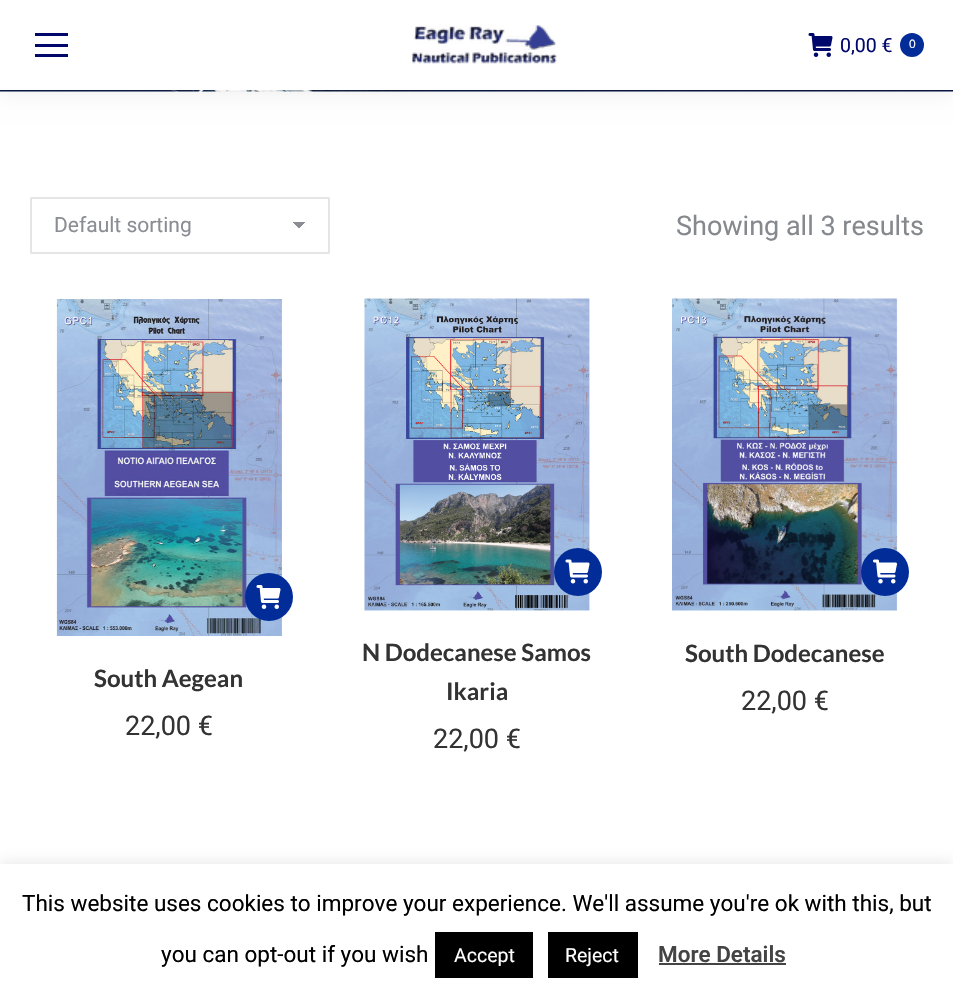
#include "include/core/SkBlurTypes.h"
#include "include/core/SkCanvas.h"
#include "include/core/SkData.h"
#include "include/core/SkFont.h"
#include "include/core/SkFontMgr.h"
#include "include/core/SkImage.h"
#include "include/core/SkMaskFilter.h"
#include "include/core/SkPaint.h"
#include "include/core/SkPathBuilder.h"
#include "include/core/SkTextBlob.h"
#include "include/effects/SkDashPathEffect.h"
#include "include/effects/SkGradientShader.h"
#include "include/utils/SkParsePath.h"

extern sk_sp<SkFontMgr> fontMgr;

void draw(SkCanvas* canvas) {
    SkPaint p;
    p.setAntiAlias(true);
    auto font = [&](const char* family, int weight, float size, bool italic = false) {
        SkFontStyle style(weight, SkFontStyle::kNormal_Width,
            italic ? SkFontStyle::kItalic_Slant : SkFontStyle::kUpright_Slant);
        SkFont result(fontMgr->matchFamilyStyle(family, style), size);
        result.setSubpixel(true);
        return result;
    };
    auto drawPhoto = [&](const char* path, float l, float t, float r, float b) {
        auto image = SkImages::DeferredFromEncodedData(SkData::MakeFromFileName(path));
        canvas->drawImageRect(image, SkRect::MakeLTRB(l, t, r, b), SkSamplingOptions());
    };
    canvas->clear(0xFFFFFFFF);
    p.setColor(0xFFF7F7F7);
    canvas->drawRect(SkRect::MakeLTRB(0, 91, 953, 92), p);
    drawPhoto("media/3.png", 0, 90, 953, 92);
    p.setColor(0x12000000);
    p.setMaskFilter(SkMaskFilter::MakeBlur(kNormal_SkBlurStyle, 11));
    canvas->drawRect(SkRect::MakeLTRB(-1, -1, 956, 92), p);
    p.setMaskFilter(nullptr);
    {
        const struct { float l, t, r, b; SkColor color; } items[] = {
            {0, 0, 953, 90, 0xFFFFFFFF},
            {35, 33, 68, 36, 0xFF01086B},
            {35, 44, 68, 47, 0xFF01086B},
            {35, 54, 68, 57, 0xFF01086B},
        };
        for (auto [l, t, r, b, color] : items) {
            p.setColor(color);
            canvas->drawRect(SkRect::MakeLTRB(l, t, r, b), p);
        }
    }
    drawPhoto("media/1.png", 412, 25, 557, 64);
    drawPhoto("media/2.png", 808, 33, 833, 57);
    auto font1 = font("Roboto", 400, 19.5f);
    canvas->drawString("0,00 €", 840, 52, font1, p);
    p.setColor(0xFF022D98);
    canvas->drawCircle(912, 45, 12, p);
    auto font2 = font("Liberation Sans", 400, 12);
    p.setColor(0xFFFFFFFF);
    canvas->drawString("0", 909, 48, font2, p);
    {
        const SkColor colors[] = {0xFF8B8D94, 0xFFFDFDFD};
        const float stops[] = {0.5f, 0.5f};
        const SkPoint ends[] = {{299, 221}, {306, 229}};
        p.setShader(SkGradientShader::MakeLinear(ends, colors, stops, 2, SkTileMode::kClamp));
        p.setAlpha(255);
    }
    canvas->drawRect(SkRect::MakeLTRB(299, 222, 305, 230), p);
    {
        const SkColor colors[] = {0xFFFDFDFD, 0xFF8B8D94};
        const float stops[] = {0.5f, 0.5f};
        const SkPoint ends[] = {{291, 229}, {299, 221}};
        p.setShader(SkGradientShader::MakeLinear(ends, colors, stops, 2, SkTileMode::kClamp));
        p.setAlpha(255);
    }
    canvas->drawRect(SkRect::MakeLTRB(291, 222, 299, 229), p);
    p.setStyle(SkPaint::kStroke_Style);
    p.setStrokeWidth(2);
    p.setShader(nullptr);
    p.setColor(0xFFE5E5E5);
    canvas->drawRoundRect(SkRect::MakeLTRB(31, 198, 329, 253), 0.5f, 0.5f, p);
    auto font3 = font("Roboto", 400, 21);
    p.setStyle(SkPaint::kFill_Style);
    p.setColor(0xFF8B8D94);
    canvas->drawString("Default sorting", 54, 232, font3, p);
    auto font4 = font("Roboto", 400, 27);
    p.setColor(0xFF85888C);
    canvas->drawString("Showing all 3 results", 676, 235, font4, p);
    drawPhoto("media/4.png", 56, 299, 282, 636);
    p.setColor(0xFF022D98);
    canvas->drawCircle(269, 597, 24, p);
    drawPhoto("media/5.png", 256, 585, 281, 609);
    auto font5 = font("Lato", 700, 24);
    p.setColor(0xFF333333);
    canvas->drawString("South Aegean", 94, 687, font5, p);
    canvas->drawString("22,00 €", 125, 735, font4, p);
    drawPhoto("media/6.png", 364, 298, 590, 611);
    p.setColor(0xFF022D98);
    canvas->drawCircle(578, 572, 24, p);
    drawPhoto("media/7.png", 565, 559, 590, 584);
    p.setColor(0xFF333333);
    canvas->drawString("N Dodecanese Samos", 362, 661, font5, p);
    canvas->drawString("Ikaria", 446, 700, font5, p);
    canvas->drawString("22,00 €", 433, 748, font4, p);
    drawPhoto("media/8.png", 672, 298, 898, 611);
    p.setColor(0xFF022D98);
    canvas->drawCircle(885, 572, 24, p);
    drawPhoto("media/9.png", 873, 559, 897, 584);
    p.setColor(0xFF333333);
    canvas->drawString("South Dodecanese", 685, 662, font5, p);
    canvas->drawString("22,00 €", 741, 710, font4, p);
    p.setColor(0x4DACABAB);
    p.setMaskFilter(SkMaskFilter::MakeBlur(kNormal_SkBlurStyle, 7.5f));
    canvas->drawRect(SkRect::MakeLTRB(0, 863, 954, 1002), p);
    p.setMaskFilter(nullptr);
    p.setColor(0xFFFFFFFF);
    canvas->drawRect(SkRect::MakeLTRB(0, 864, 953, 1003), p);
    auto font6 = font("Roboto", 400, 22.5f);
    p.setColor(0xFF000000);
    canvas->drawString("This website uses cookies to improve your experience. We'll assume you're ok with this, but", 22, 911, font6, p);
    canvas->drawString("you can opt-out if you wish", 161, 962, font6, p);
    canvas->drawRect(SkRect::MakeLTRB(435, 932, 533, 978), p);
    p.setColor(0xFFFFFFFF);
    canvas->drawString("Accept", 454, 962, font1, p);
    p.setColor(0xFF000000);
    canvas->drawRect(SkRect::MakeLTRB(548, 932, 638, 978), p);
    p.setColor(0xFFFFFFFF);
    canvas->drawString("Reject", 565, 962, font1, p);
    auto font7 = font("Roboto", 600, 22.5f);
    p.setColor(0xFF444444);
    canvas->drawString("More Details", 658, 962, font7, p);
    canvas->drawRect(SkRect::MakeLTRB(659, 963, 786, 965), p);
}
